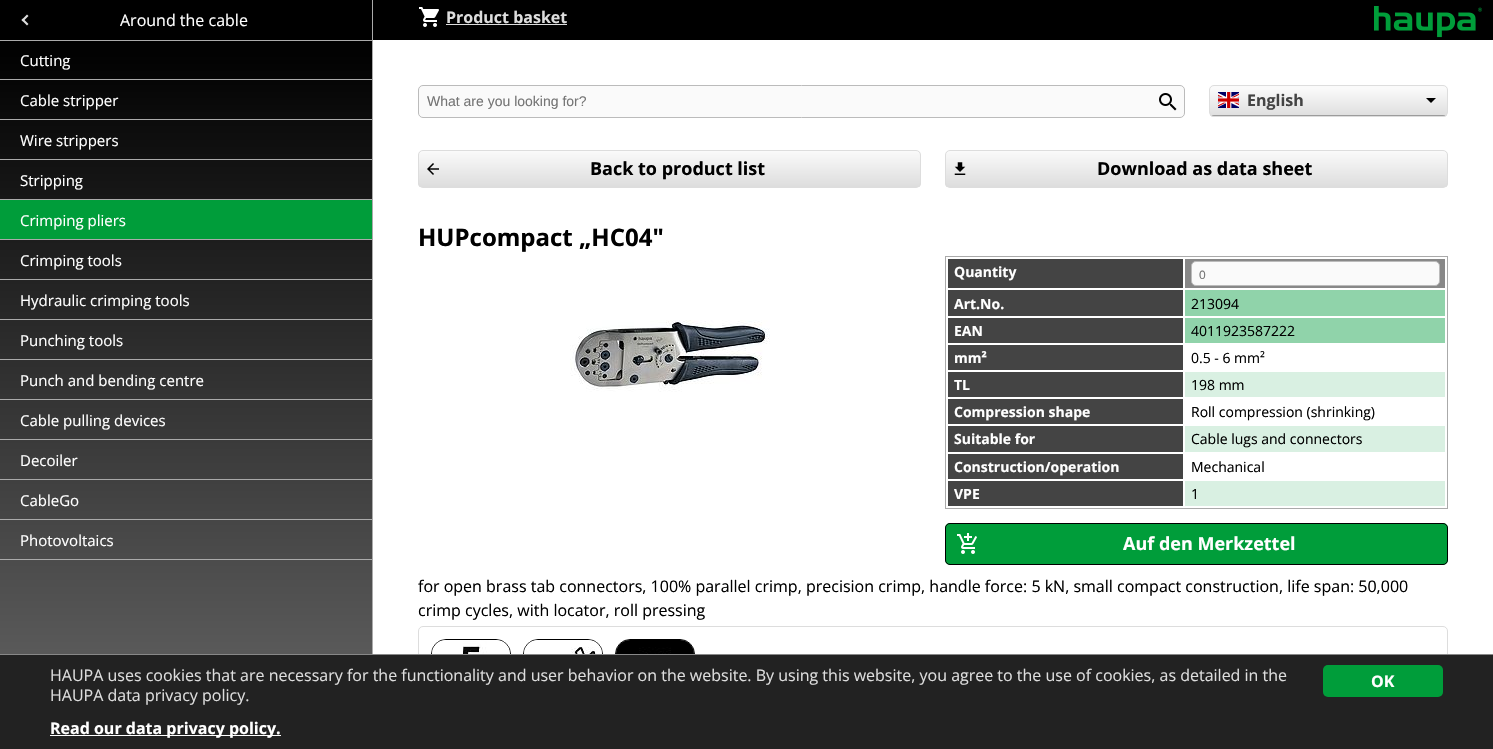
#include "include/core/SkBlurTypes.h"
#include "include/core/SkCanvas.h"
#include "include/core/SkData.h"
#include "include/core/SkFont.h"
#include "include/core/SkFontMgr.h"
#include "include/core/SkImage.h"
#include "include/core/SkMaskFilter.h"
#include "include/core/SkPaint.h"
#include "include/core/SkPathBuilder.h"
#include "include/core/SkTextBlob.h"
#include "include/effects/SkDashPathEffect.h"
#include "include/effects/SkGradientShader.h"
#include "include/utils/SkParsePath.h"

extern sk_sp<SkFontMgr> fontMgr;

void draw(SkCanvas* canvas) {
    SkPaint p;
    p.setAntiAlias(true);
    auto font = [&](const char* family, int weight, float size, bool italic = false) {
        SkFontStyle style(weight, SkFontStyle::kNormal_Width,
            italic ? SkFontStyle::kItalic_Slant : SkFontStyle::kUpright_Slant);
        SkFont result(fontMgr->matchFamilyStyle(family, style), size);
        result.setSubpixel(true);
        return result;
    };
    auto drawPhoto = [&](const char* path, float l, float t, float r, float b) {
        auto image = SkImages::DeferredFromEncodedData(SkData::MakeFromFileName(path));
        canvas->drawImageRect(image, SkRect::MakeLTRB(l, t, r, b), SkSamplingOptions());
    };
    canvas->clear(0xFFFFFFFF);
    {
        const struct { float l, t, r, b; SkColor color; } items[] = {
            {0, 0, 372, 40, 0xFF000000},
            {372, 0, 373, 654, 0xFFAAAAAA},
            {0, 40, 372, 41, 0xFFAAAAAA},
        };
        for (auto [l, t, r, b, color] : items) {
            p.setColor(color);
            canvas->drawRect(SkRect::MakeLTRB(l, t, r, b), p);
        }
    }
    p.setColor(0xFFDDDDDD);
    canvas->drawPath(SkPathBuilder().moveTo(21.5f, 20).lineTo(27, 14.5f).lineTo(28.5f, 16).lineTo(23, 21.5f).close().detach(), p);
    canvas->drawPath(SkPathBuilder().moveTo(21.5f, 20).lineTo(23, 18.5f).lineTo(28.5f, 24).lineTo(27, 25.5f).close().detach(), p);
    auto font1 = font("Open Sans", 400, 16);
    p.setColor(0xFFFFFFFF);
    canvas->drawString("Around the cable", 120, 26, font1, p);
    {
        const SkColor colors[] = {0xFF000000, 0xFF666666};
        const float stops[] = {0, 0.99f};
        const SkPoint ends[] = {{186, 40}, {186, 749}};
        p.setShader(SkGradientShader::MakeLinear(ends, colors, stops, 2, SkTileMode::kClamp));
        p.setAlpha(255);
    }
    canvas->drawRect(SkRect::MakeLTRB(0, 41, 372, 654), p);
    auto font2 = font("Open Sans", 400, 15);
    p.setShader(nullptr);
    p.setColor(0xFFFFFFFF);
    canvas->drawString("Cutting", 20, 66, font2, p);
    p.setColor(0xFFAAAAAA);
    canvas->drawRect(SkRect::MakeLTRB(0, 79, 372, 80), p);
    p.setColor(0xFFFFFFFF);
    canvas->drawString("Cable stripper", 20, 106, font2, p);
    p.setColor(0xFFAAAAAA);
    canvas->drawRect(SkRect::MakeLTRB(0, 119, 372, 120), p);
    p.setColor(0xFFFFFFFF);
    canvas->drawString("Wire strippers", 20, 146, font2, p);
    p.setColor(0xFFAAAAAA);
    canvas->drawRect(SkRect::MakeLTRB(0, 159, 372, 160), p);
    p.setColor(0xFFFFFFFF);
    canvas->drawString("Stripping", 20, 186, font2, p);
    p.setColor(0xFFAAAAAA);
    canvas->drawRect(SkRect::MakeLTRB(0, 199, 372, 200), p);
    p.setColor(0xFF009D3A);
    canvas->drawRect(SkRect::MakeLTRB(0, 200, 372, 239), p);
    p.setColor(0xFFFFFFFF);
    canvas->drawString("Crimping pliers", 20, 226, font2, p);
    p.setColor(0xFFAAAAAA);
    canvas->drawRect(SkRect::MakeLTRB(0, 239, 372, 240), p);
    p.setColor(0xFFFFFFFF);
    canvas->drawString("Crimping tools", 20, 266, font2, p);
    p.setColor(0xFFAAAAAA);
    canvas->drawRect(SkRect::MakeLTRB(0, 279, 372, 280), p);
    p.setColor(0xFFFFFFFF);
    canvas->drawString("Hydraulic crimping tools", 20, 306, font2, p);
    p.setColor(0xFFAAAAAA);
    canvas->drawRect(SkRect::MakeLTRB(0, 319, 372, 320), p);
    p.setColor(0xFFFFFFFF);
    canvas->drawString("Punching tools", 20, 346, font2, p);
    p.setColor(0xFFAAAAAA);
    canvas->drawRect(SkRect::MakeLTRB(0, 359, 372, 360), p);
    p.setColor(0xFFFFFFFF);
    canvas->drawString("Punch and bending centre", 20, 386, font2, p);
    p.setColor(0xFFAAAAAA);
    canvas->drawRect(SkRect::MakeLTRB(0, 399, 372, 400), p);
    p.setColor(0xFFFFFFFF);
    canvas->drawString("Cable pulling devices", 20, 426, font2, p);
    p.setColor(0xFFAAAAAA);
    canvas->drawRect(SkRect::MakeLTRB(0, 439, 372, 440), p);
    p.setColor(0xFFFFFFFF);
    canvas->drawString("Decoiler", 20, 466, font2, p);
    p.setColor(0xFFAAAAAA);
    canvas->drawRect(SkRect::MakeLTRB(0, 479, 372, 480), p);
    p.setColor(0xFFFFFFFF);
    canvas->drawString("CableGo", 20, 506, font2, p);
    p.setColor(0xFFAAAAAA);
    canvas->drawRect(SkRect::MakeLTRB(0, 519, 372, 520), p);
    p.setColor(0xFFFFFFFF);
    canvas->drawString("Photovoltaics", 20, 546, font2, p);
    p.setColor(0xFFAAAAAA);
    canvas->drawRect(SkRect::MakeLTRB(0, 559, 372, 560), p);
    p.setColor(0xFF000000);
    canvas->drawRect(SkRect::MakeLTRB(373, 0, 1493, 40), p);
    drawPhoto("media/1.png", 419, 7, 439, 27);
    auto font3 = font("Open Sans", 700, 16);
    p.setColor(0xFFDDDDDD);
    canvas->drawString("Product basket", 446, 23, font3, p);
    canvas->drawRect(SkRect::MakeLTRB(446, 24, 567, 25), p);
    drawPhoto("media/2.png", 1374, 6, 1482, 38);
    p.setColor(0xFFFAFAFA);
    canvas->drawRoundRect(SkRect::MakeLTRB(418.5f, 85.5f, 1184.5f, 117.5f), 4.5f, 4.5f, p);
    p.setStyle(SkPaint::kStroke_Style);
    p.setStrokeWidth(1);
    p.setColor(0xFFBBBBBB);
    canvas->drawRoundRect(SkRect::MakeLTRB(418.5f, 85.5f, 1184.5f, 117.5f), 4.5f, 4.5f, p);
    auto font4 = font("Liberation Sans", 400, 14);
    p.setStyle(SkPaint::kFill_Style);
    p.setColor(0xFF757575);
    canvas->drawString("What are you looking for?", 427, 106, font4, p);
    drawPhoto("media/3.png", 1159, 93, 1177, 111);
    p.setColor(0xFFFAFAFA);
    canvas->drawRoundRect(SkRect::MakeLTRB(1209, 85, 1448, 117), 5, 5, p);
    canvas->save();
    canvas->clipPath(SkPathBuilder().moveTo(1214, 85).lineTo(1443, 85).cubicTo(1446, 85, 1448, 87, 1448, 90).lineTo(1448, 112).cubicTo(1448, 115, 1446, 117, 1443, 117).lineTo(1214, 117).cubicTo(1211, 117, 1209, 115, 1209, 112).lineTo(1209, 90).cubicTo(1209, 87, 1211, 85, 1214, 85).close().detach(), true);
    {
        const SkColor colors[] = {0xFFFAFAFA, 0xFFDDDDDD};
        const float stops[] = {0, 1};
        const SkPoint ends[] = {{1329, 88}, {1329, 118}};
        p.setShader(SkGradientShader::MakeLinear(ends, colors, stops, 2, SkTileMode::kClamp));
        p.setAlpha(255);
    }
    canvas->drawRect(SkRect::MakeLTRB(1210, 88, 1447, 117), p);
    canvas->restore();
    p.setShader(nullptr);
    p.setColor(0xFF000000);
    canvas->drawPath(SkPathBuilder().moveTo(1426, 98).lineTo(1431, 103).lineTo(1436, 98).close().detach(), p);
    p.setStyle(SkPaint::kStroke_Style);
    p.setColor(0xFFDDDDDD);
    canvas->drawRoundRect(SkRect::MakeLTRB(1209.5f, 85.5f, 1447.5f, 116.5f), 4.5f, 4.5f, p);
    canvas->save();
    canvas->clipPath(SkPathBuilder().moveTo(1214, 86).lineTo(1443, 86).cubicTo(1445, 86, 1447, 88, 1447, 90).lineTo(1447, 112).cubicTo(1447, 114, 1445, 116, 1443, 116).lineTo(1214, 116).cubicTo(1212, 116, 1210, 114, 1210, 112).lineTo(1210, 90).cubicTo(1210, 88, 1212, 86, 1214, 86).close().detach(), true);
    p.setStyle(SkPaint::kFill_Style);
    p.setColor(0xFF9C9C9C);
    canvas->drawRect(SkRect::MakeLTRB(1210, 115, 1447, 116), p);
    canvas->restore();
    drawPhoto("media/4.png", 1218, 92, 1239, 108);
    p.setColor(0xFF444444);
    canvas->drawString("English", 1247, 106, font3, p);
    canvas->save();
    canvas->clipPath(SkPathBuilder().moveTo(423, 150).lineTo(916, 150).cubicTo(919, 150, 921, 152, 921, 155).lineTo(921, 183).cubicTo(921, 186, 919, 188, 916, 188).lineTo(423, 188).cubicTo(420, 188, 418, 186, 418, 183).lineTo(418, 155).cubicTo(418, 152, 420, 150, 423, 150).close().detach(), true);
    {
        const SkColor colors[] = {0xFFFAFAFA, 0xFFDDDDDD};
        const float stops[] = {0, 1};
        const SkPoint ends[] = {{670, 151}, {670, 187}};
        p.setShader(SkGradientShader::MakeLinear(ends, colors, stops, 2, SkTileMode::kClamp));
        p.setAlpha(255);
    }
    canvas->drawRect(SkRect::MakeLTRB(418, 151, 921, 187), p);
    canvas->restore();
    drawPhoto("media/5.png", 427, 163, 439, 175);
    p.setStyle(SkPaint::kStroke_Style);
    p.setShader(nullptr);
    p.setColor(0xFFDDDDDD);
    canvas->drawRoundRect(SkRect::MakeLTRB(418.5f, 150.5f, 920.5f, 187.5f), 4.5f, 4.5f, p);
    auto font5 = font("Open Sans", 700, 18);
    p.setStyle(SkPaint::kFill_Style);
    p.setColor(0xFF000000);
    canvas->drawString("Back to product list", 590, 175, font5, p);
    canvas->save();
    canvas->clipPath(SkPathBuilder().moveTo(950, 150).lineTo(1443, 150).cubicTo(1446, 150, 1448, 152, 1448, 155).lineTo(1448, 183).cubicTo(1448, 186, 1446, 188, 1443, 188).lineTo(950, 188).cubicTo(947, 188, 945, 186, 945, 183).lineTo(945, 155).cubicTo(945, 152, 947, 150, 950, 150).close().detach(), true);
    {
        const SkColor colors[] = {0xFFFAFAFA, 0xFFDDDDDD};
        const float stops[] = {0, 1};
        const SkPoint ends[] = {{1197, 151}, {1197, 187}};
        p.setShader(SkGradientShader::MakeLinear(ends, colors, stops, 2, SkTileMode::kClamp));
        p.setAlpha(255);
    }
    canvas->drawRect(SkRect::MakeLTRB(945, 151, 1448, 187), p);
    canvas->restore();
    drawPhoto("media/6.png", 954, 162, 966, 175);
    p.setStyle(SkPaint::kStroke_Style);
    p.setShader(nullptr);
    p.setColor(0xFFDDDDDD);
    canvas->drawRoundRect(SkRect::MakeLTRB(945.5f, 150.5f, 1447.5f, 187.5f), 4.5f, 4.5f, p);
    p.setStyle(SkPaint::kFill_Style);
    p.setColor(0xFF000000);
    canvas->drawString("Download as data sheet", 1097, 175, font5, p);
    auto font6 = font("Open Sans", 700, 24);
    canvas->drawString("HUPcompact „HC04\"", 418, 246, font6, p);
    drawPhoto("media/7.png", 570, 320, 770, 392);
    p.setStyle(SkPaint::kStroke_Style);
    p.setColor(0xFFAAAAAA);
    canvas->drawRect(SkRect::MakeLTRB(945.5f, 256.5f, 1447.5f, 508.5f), p);
    p.setStyle(SkPaint::kFill_Style);
    p.setColor(0xFF444444);
    canvas->drawRect(SkRect::MakeLTRB(948, 259, 1183, 288), p);
    auto font7 = font("Open Sans", 700, 14);
    p.setColor(0xFFFFFFFF);
    canvas->drawString("Quantity", 954, 277, font7, p);
    p.setColor(0xFF888888);
    canvas->drawRect(SkRect::MakeLTRB(1185, 259, 1445, 288), p);
    p.setColor(0xFFFAFAFA);
    canvas->drawRoundRect(SkRect::MakeLTRB(1191.5f, 261.5f, 1439.5f, 285.5f), 4.5f, 4.5f, p);
    p.setStyle(SkPaint::kStroke_Style);
    p.setColor(0xFFBBBBBB);
    canvas->drawRoundRect(SkRect::MakeLTRB(1191.5f, 261.5f, 1439.5f, 285.5f), 4.5f, 4.5f, p);
    auto font8 = font("Liberation Sans", 400, 12);
    p.setStyle(SkPaint::kFill_Style);
    p.setColor(0xFF757575);
    canvas->drawString("0", 1199, 279, font8, p);
    p.setColor(0xFF444444);
    canvas->drawRect(SkRect::MakeLTRB(948, 290, 1183, 316), p);
    p.setColor(0xFFFFFFFF);
    canvas->drawString("Art.No.", 954, 309, font7, p);
    p.setColor(0xFF90D3AA);
    canvas->drawRect(SkRect::MakeLTRB(1185, 290, 1445, 316), p);
    auto font9 = font("Open Sans", 400, 14);
    p.setColor(0xFF000000);
    canvas->drawString("213094", 1191, 309, font9, p);
    p.setColor(0xFF444444);
    canvas->drawRect(SkRect::MakeLTRB(948, 318, 1183, 343), p);
    p.setColor(0xFFFFFFFF);
    canvas->drawString("EAN", 954, 336, font7, p);
    p.setColor(0xFF90D3AA);
    canvas->drawRect(SkRect::MakeLTRB(1185, 318, 1445, 343), p);
    p.setColor(0xFF000000);
    canvas->drawString("4011923587222", 1191, 336, font9, p);
    p.setColor(0xFF444444);
    canvas->drawRect(SkRect::MakeLTRB(948, 345, 1183, 370), p);
    p.setColor(0xFFFFFFFF);
    canvas->drawString("mm²", 954, 363, font7, p);
    p.setColor(0xFF000000);
    canvas->drawString("0.5 - 6 mm²", 1191, 363, font9, p);
    p.setColor(0xFFD9F0E2);
    canvas->drawRect(SkRect::MakeLTRB(1185, 372, 1445, 397), p);
    p.setColor(0xFF444444);
    canvas->drawRect(SkRect::MakeLTRB(948, 372, 1183, 397), p);
    p.setColor(0xFFFFFFFF);
    canvas->drawString("TL", 954, 390, font7, p);
    p.setColor(0xFF000000);
    canvas->drawString("198 mm", 1191, 390, font9, p);
    p.setColor(0xFF444444);
    canvas->drawRect(SkRect::MakeLTRB(948, 399, 1183, 424), p);
    p.setColor(0xFFFFFFFF);
    canvas->drawString("Compression shape", 954, 417, font7, p);
    p.setColor(0xFF000000);
    canvas->drawString("Roll compression (shrinking)", 1191, 417, font9, p);
    p.setColor(0xFFD9F0E2);
    canvas->drawRect(SkRect::MakeLTRB(1185, 426, 1445, 452), p);
    p.setColor(0xFF444444);
    canvas->drawRect(SkRect::MakeLTRB(948, 426, 1183, 452), p);
    p.setColor(0xFFFFFFFF);
    canvas->drawString("Suitable for", 954, 444, font7, p);
    p.setColor(0xFF000000);
    canvas->drawString("Cable lugs and connectors", 1191, 444, font9, p);
    p.setColor(0xFF444444);
    canvas->drawRect(SkRect::MakeLTRB(948, 454, 1183, 479), p);
    p.setColor(0xFFFFFFFF);
    canvas->drawString("Construction/operation", 954, 472, font7, p);
    p.setColor(0xFF000000);
    canvas->drawString("Mechanical", 1191, 472, font9, p);
    p.setColor(0xFFD9F0E2);
    canvas->drawRect(SkRect::MakeLTRB(1185, 481, 1445, 506), p);
    p.setColor(0xFF444444);
    canvas->drawRect(SkRect::MakeLTRB(948, 481, 1183, 506), p);
    p.setColor(0xFFFFFFFF);
    canvas->drawString("VPE", 954, 499, font7, p);
    p.setColor(0xFF000000);
    canvas->drawString("1", 1191, 499, font9, p);
    p.setColor(0xFF009D3A);
    canvas->drawRoundRect(SkRect::MakeLTRB(945, 523, 1448, 565), 5, 5, p);
    drawPhoto("media/8.png", 957, 533, 977, 554);
    p.setStyle(SkPaint::kStroke_Style);
    p.setColor(0xFF000000);
    canvas->drawRoundRect(SkRect::MakeLTRB(945.5f, 523.5f, 1447.5f, 564.5f), 4.5f, 4.5f, p);
    p.setStyle(SkPaint::kFill_Style);
    p.setColor(0xFFFFFFFF);
    canvas->drawString("Auf den Merkzettel", 1123, 550, font5, p);
    p.setColor(0xFF000000);
    canvas->drawString("for open brass tab connectors, 100% parallel crimp, precision crimp, handle force: 5 kN, small compact construction, life span: 50,000", 418, 592, font1, p);
    canvas->drawString("crimp cycles, with locator, roll pressing", 418, 616, font1, p);
    p.setStyle(SkPaint::kStroke_Style);
    p.setColor(0xFFDDDDDD);
    canvas->drawRoundRect(SkRect::MakeLTRB(418.5f, 626.5f, 1447.5f, 731.5f), 4.5f, 4.5f, p);
    p.setColor(0xFF000000);
    canvas->drawRoundRect(SkRect::MakeLTRB(431.5f, 639.5f, 510.5f, 718.5f), 14.5f, 14.5f, p);
    drawPhoto("media/9.png", 432, 640, 510, 654);
    canvas->drawRoundRect(SkRect::MakeLTRB(523.5f, 639.5f, 602.5f, 718.5f), 14.5f, 14.5f, p);
    drawPhoto("media/10.png", 524, 640, 602, 654);
    canvas->drawRoundRect(SkRect::MakeLTRB(615.5f, 639.5f, 694.5f, 718.5f), 14.5f, 14.5f, p);
    drawPhoto("media/11.png", 616, 640, 694, 654);
    p.setStyle(SkPaint::kFill_Style);
    p.setColor(0xFF222222);
    canvas->drawRect(SkRect::MakeLTRB(0, 655, 1493, 749), p);
    p.setColor(0xFF888888);
    canvas->drawRect(SkRect::MakeLTRB(0, 654, 1493, 655), p);
    p.setColor(0xFFDDDDDD);
    canvas->drawString("HAUPA uses cookies that are necessary for the functionality and user behavior on the website. By using this website, you agree to the use of cookies, as detailed in the", 50, 681, font1, p);
    canvas->drawString("HAUPA data privacy policy.", 50, 701, font1, p);
    p.setColor(0xFFFFFFFF);
    canvas->drawRect(SkRect::MakeLTRB(50, 735, 281, 736), p);
    canvas->drawString("Read our data privacy policy.", 50, 734, font3, p);
    p.setColor(0xFF009D3A);
    canvas->drawRoundRect(SkRect::MakeLTRB(1323, 665, 1443, 697), 5, 5, p);
    p.setColor(0xFFFFFFFF);
    canvas->drawString("OK", 1371, 687, font3, p);
}
